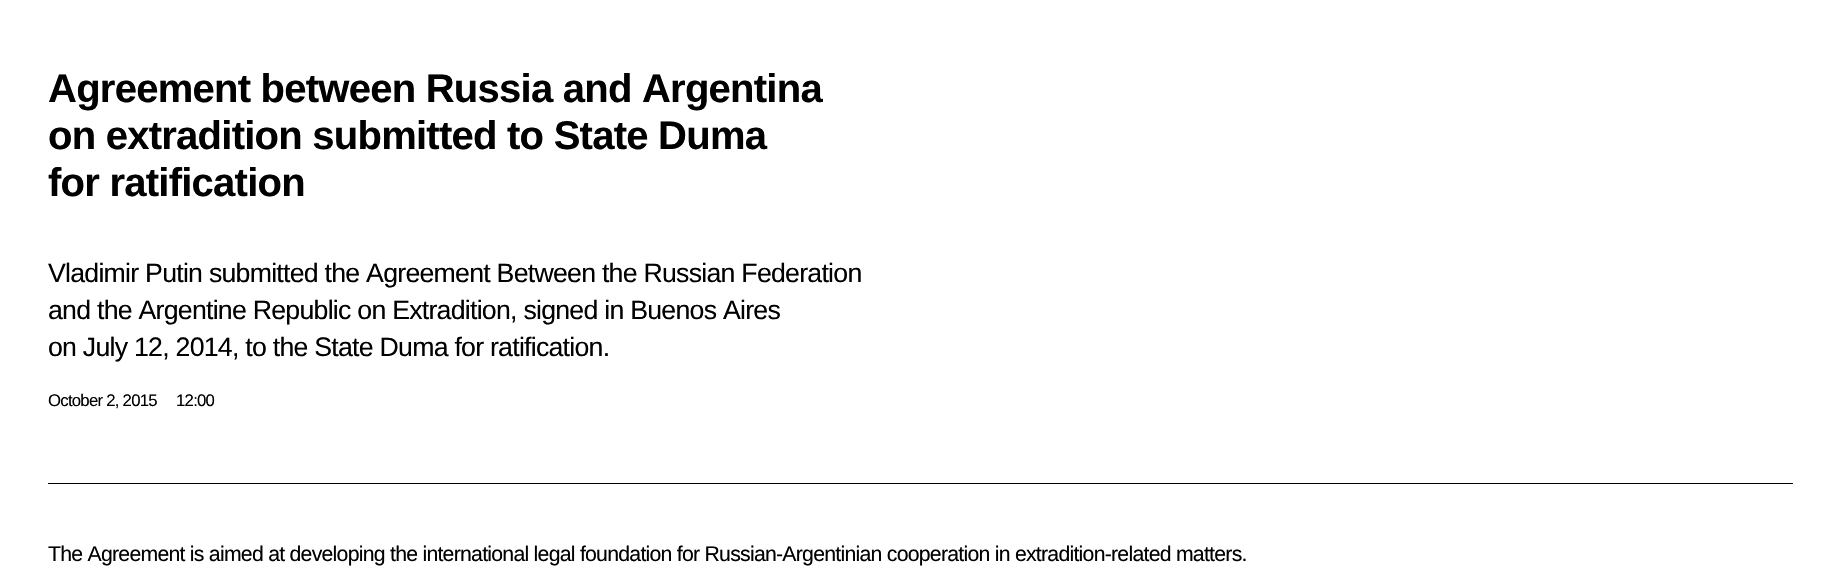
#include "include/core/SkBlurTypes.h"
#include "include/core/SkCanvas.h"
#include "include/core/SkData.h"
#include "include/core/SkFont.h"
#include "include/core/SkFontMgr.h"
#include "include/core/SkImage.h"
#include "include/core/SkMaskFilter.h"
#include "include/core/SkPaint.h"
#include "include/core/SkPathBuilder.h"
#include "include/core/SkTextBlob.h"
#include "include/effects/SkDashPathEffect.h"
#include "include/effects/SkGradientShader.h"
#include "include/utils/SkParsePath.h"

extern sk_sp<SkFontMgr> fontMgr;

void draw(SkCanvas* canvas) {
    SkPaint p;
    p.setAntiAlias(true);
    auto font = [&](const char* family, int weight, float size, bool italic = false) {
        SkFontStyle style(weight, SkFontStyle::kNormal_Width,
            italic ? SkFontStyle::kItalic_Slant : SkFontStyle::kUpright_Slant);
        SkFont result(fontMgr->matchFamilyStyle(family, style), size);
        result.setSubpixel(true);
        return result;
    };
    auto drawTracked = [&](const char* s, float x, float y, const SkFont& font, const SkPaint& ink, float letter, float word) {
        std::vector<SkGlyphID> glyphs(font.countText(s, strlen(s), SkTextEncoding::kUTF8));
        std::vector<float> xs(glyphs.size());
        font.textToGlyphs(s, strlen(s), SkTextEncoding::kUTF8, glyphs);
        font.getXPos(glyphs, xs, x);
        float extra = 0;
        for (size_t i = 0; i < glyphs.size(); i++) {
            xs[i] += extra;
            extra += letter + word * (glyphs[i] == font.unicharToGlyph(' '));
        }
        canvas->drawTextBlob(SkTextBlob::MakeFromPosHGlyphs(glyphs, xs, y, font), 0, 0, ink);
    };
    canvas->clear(0xFFFFFFFF);
    p.setColor(0xFF000000);
    canvas->drawRect(SkRect::MakeLTRB(48, 483, 1793, 484), p);
    auto font1 = font("Liberation Sans", 700, 40);
    {
        const struct { const char* s; float x, y; } items[] = {
            {"Agreement between Russia and Argentina", 48, 102},
            {"on extradition submitted to State Duma", 48, 149},
            {"for ratification", 48, 196},
        };
        for (auto [s, x, y] : items) {
            drawTracked(s, x, y, font1, p, -0.75f, 0);
        }
    }
    auto font2 = font("Liberation Sans", 400, 26.7f);
    {
        const struct { const char* s; float x, y; } items[] = {
            {"Vladimir Putin submitted the Agreement Between the Russian Federation", 48, 282},
            {"and the Argentine Republic on Extradition, signed in Buenos Aires", 48, 319},
            {"on July 12, 2014, to the State Duma for ratification.", 48, 356},
        };
        for (auto [s, x, y] : items) {
            drawTracked(s, x, y, font2, p, -0.75f, 0);
        }
    }
    auto font3 = font("Liberation Sans", 400, 16.75f);
    drawTracked("October 2, 2015", 48, 406, font3, p, -0.75f, 0);
    drawTracked("12:00", 176, 406, font3, p, -0.75f, 0);
    auto font4 = font("Liberation Sans", 400, 21.25f);
    drawTracked("The Agreement is aimed at developing the international legal foundation for Russian-Argentinian cooperation in extradition-related matters.", 48, 561, font4, p, -0.75f, 0);
}
